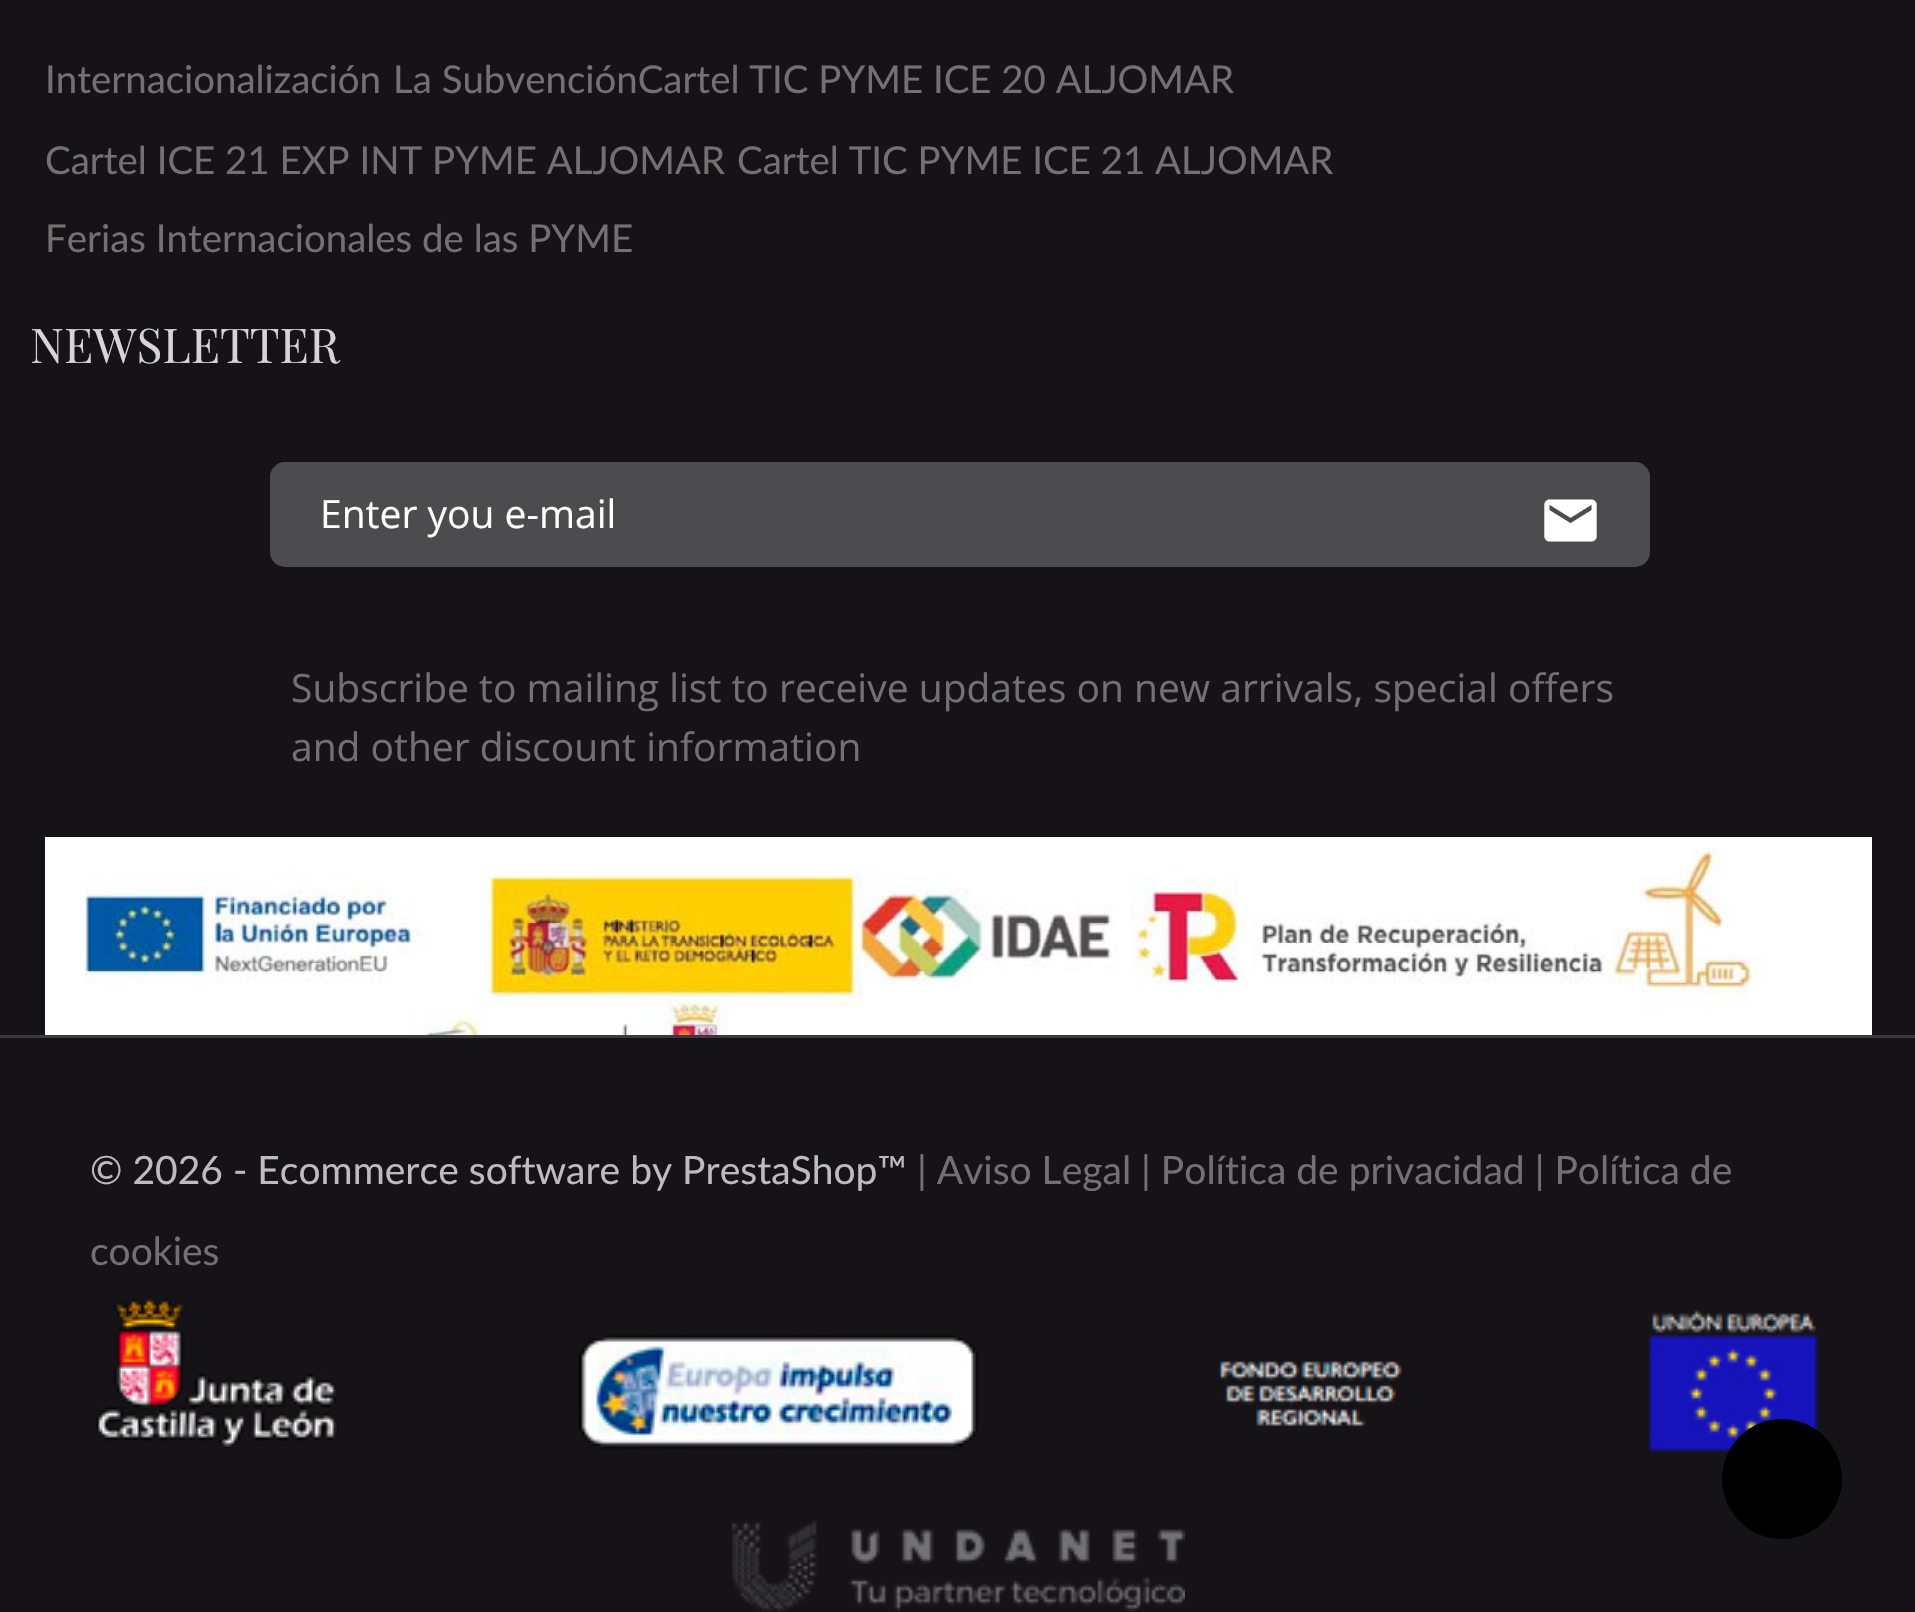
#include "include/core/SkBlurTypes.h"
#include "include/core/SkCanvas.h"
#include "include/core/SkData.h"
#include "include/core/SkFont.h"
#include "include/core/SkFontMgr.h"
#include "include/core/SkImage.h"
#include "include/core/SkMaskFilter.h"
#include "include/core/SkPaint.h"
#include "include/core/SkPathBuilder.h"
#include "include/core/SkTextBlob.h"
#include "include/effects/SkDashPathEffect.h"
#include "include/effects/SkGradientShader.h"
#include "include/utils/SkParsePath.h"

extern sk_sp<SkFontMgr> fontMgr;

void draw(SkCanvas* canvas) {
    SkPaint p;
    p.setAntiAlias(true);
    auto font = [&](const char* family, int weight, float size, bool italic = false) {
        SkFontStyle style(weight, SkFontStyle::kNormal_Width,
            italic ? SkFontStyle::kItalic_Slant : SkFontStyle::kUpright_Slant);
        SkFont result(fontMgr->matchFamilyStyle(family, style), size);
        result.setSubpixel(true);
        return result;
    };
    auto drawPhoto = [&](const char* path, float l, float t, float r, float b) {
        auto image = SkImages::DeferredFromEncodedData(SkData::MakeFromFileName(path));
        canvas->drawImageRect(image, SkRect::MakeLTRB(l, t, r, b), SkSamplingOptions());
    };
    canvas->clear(0xFF151318);
    auto font1 = font("Lato", 400, 38.4f);
    p.setColor(0xFF727171);
    {
        const struct { const char* s; float x, y; } items[] = {
            {"Internacionalización", 45, 93},
            {"La SubvenciónCartel TIC PYME ICE 20 ALJOMAR", 393, 93},
            {"Cartel ICE 21 EXP INT PYME ALJOMAR", 45, 174},
            {"Cartel TIC PYME ICE 21 ALJOMAR", 737, 174},
            {"Ferias Internacionales de las PYME", 45, 252},
        };
        for (auto [s, x, y] : items) {
            canvas->drawString(s, x, y, font1, p);
        }
    }
    auto font2 = font("Playfair Display SC", 400, 48);
    p.setColor(0xFFD5D5D5);
    canvas->drawString("NEWSLETTER", 30, 363, font2, p);
    p.setColor(0xFF4C4B4D);
    canvas->drawRoundRect(SkRect::MakeLTRB(270, 462, 1650, 567), 15, 15, p);
    auto font3 = font("Open Sans", 400, 39);
    p.setColor(0xFFFFFFFF);
    canvas->drawString("Enter you e-mail", 320, 528, font3, p);
    drawPhoto("media/1.png", 1544, 499, 1597, 542);
    p.setColor(0xFF727171);
    canvas->drawString("Subscribe to mailing list to receive updates on new arrivals, special offers", 291, 702, font3, p);
    canvas->drawString("and other discount information", 291, 761, font3, p);
    drawPhoto("media/6.png", 1647, 1310, 1819, 1454);
    p.setColor(0xFF000000);
    canvas->drawCircle(1782, 1479, 60, p);
    drawPhoto("media/2.png", 45, 837, 1872, 1035);
    p.setColor(0xFF3A393B);
    canvas->drawRect(SkRect::MakeLTRB(0, 1035, 1915, 1038), p);
    auto font4 = font("Lato", 400, 39);
    p.setColor(0xFFBCBCBC);
    canvas->drawString("© 2026 - Ecommerce software by PrestaShop™", 90, 1184, font4, p);
    p.setColor(0xFF727171);
    canvas->drawString("| Aviso Legal | Política de privacidad | Política de", 917, 1184, font4, p);
    canvas->drawString("cookies", 90, 1265, font4, p);
    drawPhoto("media/3.png", 95, 1290, 339, 1450);
    drawPhoto("media/4.png", 578, 1334, 979, 1450);
    drawPhoto("media/5.png", 1217, 1361, 1402, 1433);
    drawPhoto("media/7.png", 732, 1521, 1185, 1611);
}
